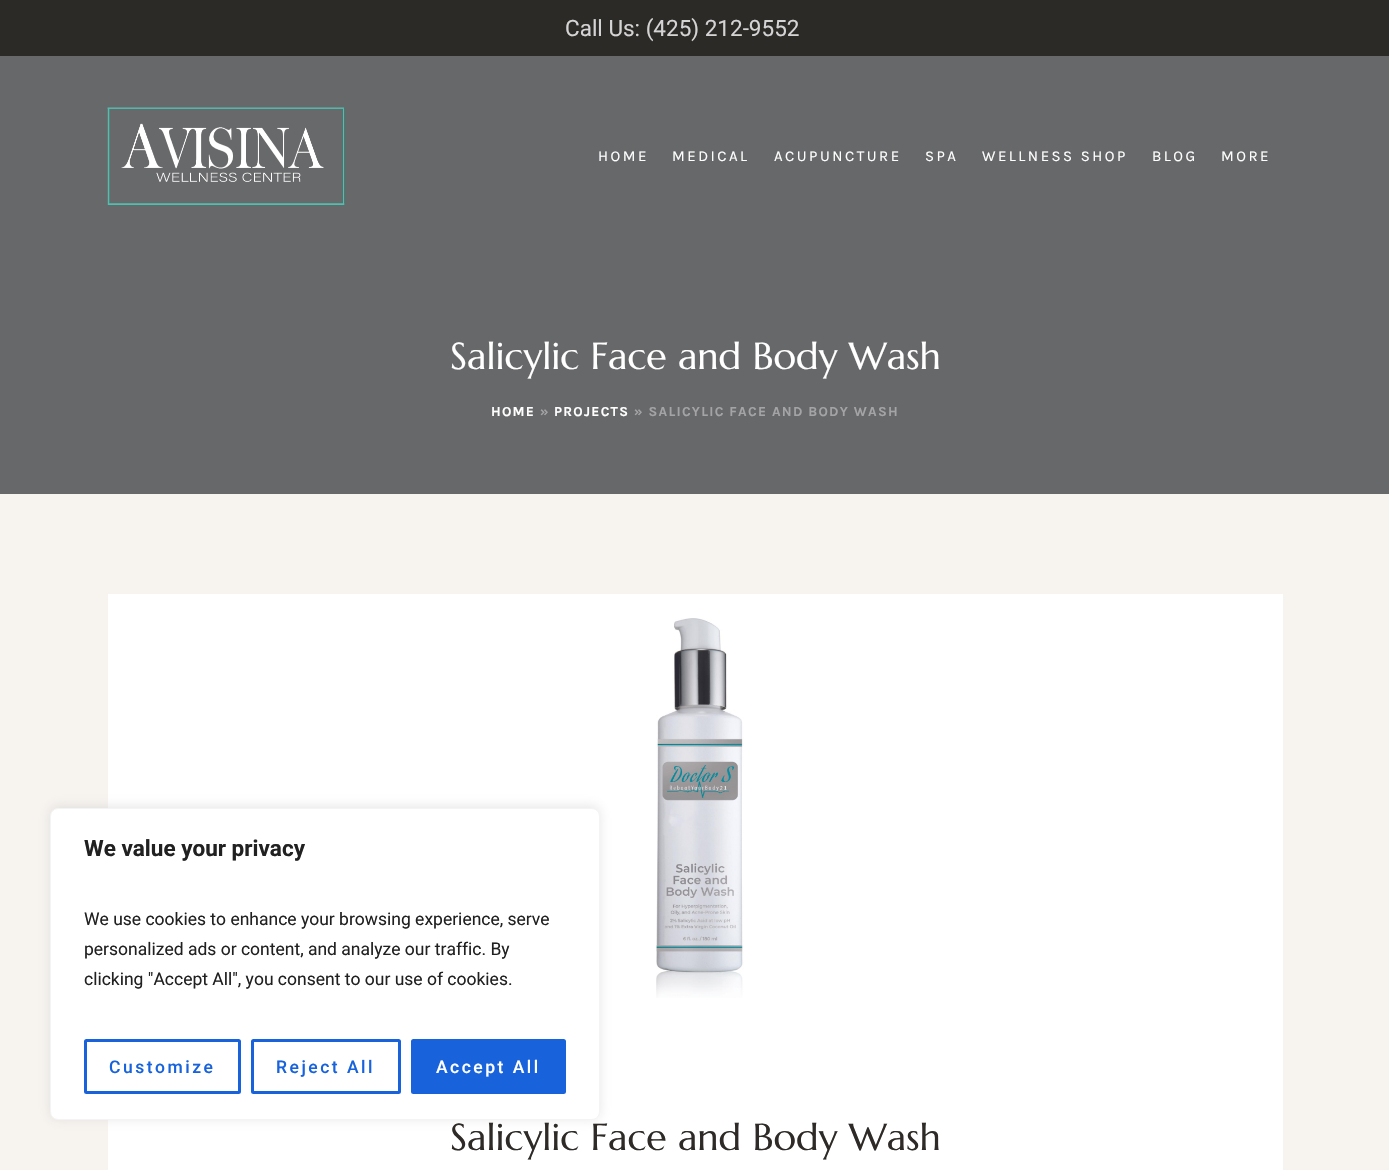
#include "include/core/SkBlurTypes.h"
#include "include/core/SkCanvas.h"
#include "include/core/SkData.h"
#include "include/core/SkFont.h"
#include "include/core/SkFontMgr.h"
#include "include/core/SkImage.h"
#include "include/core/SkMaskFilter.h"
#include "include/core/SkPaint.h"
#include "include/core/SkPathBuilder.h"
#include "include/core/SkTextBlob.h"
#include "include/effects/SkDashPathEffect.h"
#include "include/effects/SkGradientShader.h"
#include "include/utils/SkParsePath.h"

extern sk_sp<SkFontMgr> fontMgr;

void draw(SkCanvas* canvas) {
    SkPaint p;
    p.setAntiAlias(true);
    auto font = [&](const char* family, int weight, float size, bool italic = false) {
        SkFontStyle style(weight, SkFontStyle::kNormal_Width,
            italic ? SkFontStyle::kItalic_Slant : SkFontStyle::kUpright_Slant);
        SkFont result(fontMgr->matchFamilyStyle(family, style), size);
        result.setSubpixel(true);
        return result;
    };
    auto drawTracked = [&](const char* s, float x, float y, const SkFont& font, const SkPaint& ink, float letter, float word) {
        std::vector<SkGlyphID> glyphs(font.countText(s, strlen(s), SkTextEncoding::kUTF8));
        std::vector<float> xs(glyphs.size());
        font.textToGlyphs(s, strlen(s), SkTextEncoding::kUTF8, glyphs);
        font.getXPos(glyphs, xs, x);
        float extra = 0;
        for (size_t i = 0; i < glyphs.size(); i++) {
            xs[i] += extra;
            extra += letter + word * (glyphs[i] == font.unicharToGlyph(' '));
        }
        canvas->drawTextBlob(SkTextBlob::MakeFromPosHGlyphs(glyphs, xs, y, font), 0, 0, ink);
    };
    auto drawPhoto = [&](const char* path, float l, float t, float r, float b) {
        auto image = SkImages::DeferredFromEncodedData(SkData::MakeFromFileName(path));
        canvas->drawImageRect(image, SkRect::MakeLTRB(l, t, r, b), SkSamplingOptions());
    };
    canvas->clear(0xFFF7F4F0);
    p.setColor(0xFFFFFFFF);
    canvas->drawRect(SkRect::MakeLTRB(108, 594, 1283, 1170), p);
    p.setColor(0x4DACABAB);
    p.setMaskFilter(SkMaskFilter::MakeBlur(kNormal_SkBlurStyle, 6));
    canvas->drawRoundRect(SkRect::MakeLTRB(50, 806, 600, 1119), 8, 8, p);
    p.setMaskFilter(nullptr);
    p.setColor(0xFFFFFFFF);
    canvas->drawRoundRect(SkRect::MakeLTRB(50.5f, 808.5f, 599.5f, 1119.5f), 7.5f, 7.5f, p);
    p.setStyle(SkPaint::kStroke_Style);
    p.setStrokeWidth(1);
    p.setColor(0xFFF4F4F4);
    canvas->drawRoundRect(SkRect::MakeLTRB(50.5f, 808.5f, 599.5f, 1119.5f), 7.5f, 7.5f, p);
    auto font1 = font("Roboto", 700, 22.5f);
    p.setStyle(SkPaint::kFill_Style);
    p.setColor(0xFF212121);
    canvas->drawString("We value your privacy", 84, 856, font1, p);
    auto font2 = font("Roboto", 400, 17.5f);
    {
        const struct { const char* s; float x, y; } items[] = {
            {"We use cookies to enhance your browsing experience, serve", 84, 925},
            {"personalized ads or content, and analyze our traffic. By", 84, 955},
            {"clicking \"Accept All\", you consent to our use of cookies.", 84, 985},
        };
        for (auto [s, x, y] : items) {
            canvas->drawString(s, x, y, font2, p);
        }
    }
    p.setStyle(SkPaint::kStroke_Style);
    p.setStrokeWidth(3);
    p.setColor(0xFF1863DC);
    canvas->drawRoundRect(SkRect::MakeLTRB(85.5f, 1040.5f, 239.5f, 1092.5f), 1, 1, p);
    auto font3 = font("Roboto", 500, 17.5f);
    p.setStyle(SkPaint::kFill_Style);
    drawTracked("Customize", 109, 1073, font3, p, 2.5f, 0);
    p.setStyle(SkPaint::kStroke_Style);
    canvas->drawRoundRect(SkRect::MakeLTRB(252.5f, 1040.5f, 399.5f, 1092.5f), 1, 1, p);
    p.setStyle(SkPaint::kFill_Style);
    drawTracked("Reject All", 276, 1073, font3, p, 2.5f, 0);
    canvas->drawRoundRect(SkRect::MakeLTRB(412.5f, 1040.5f, 564.5f, 1092.5f), 1, 1, p);
    p.setStyle(SkPaint::kStroke_Style);
    canvas->drawRoundRect(SkRect::MakeLTRB(412.5f, 1040.5f, 564.5f, 1092.5f), 1, 1, p);
    p.setStyle(SkPaint::kFill_Style);
    p.setColor(0xFFFFFFFF);
    drawTracked("Accept All", 436, 1073, font3, p, 2.5f, 0);
    p.setColor(0xFF2C2A27);
    canvas->drawRect(SkRect::MakeLTRB(0, 0, 1389, 56), p);
    auto font4 = font("Roboto", 400, 22.5f);
    p.setColor(0xFFD5D4D4);
    canvas->drawString("Call Us: (425) 212-9552", 565, 36, font4, p);
    p.setColor(0xFF67686A);
    canvas->drawRect(SkRect::MakeLTRB(0, 56, 1389, 494), p);
    drawPhoto("media/1.png", 107, 107, 345, 205);
    auto font5 = font("Karla", 400, 15);
    p.setColor(0xFFFFFFFF);
    {
        const struct { const char* s; float x, y; } items[] = {
            {"HOME", 598, 161},
            {"MEDICAL", 672, 161},
            {"ACUPUNCTURE", 774, 161},
            {"SPA", 925, 161},
            {"WELLNESS SHOP", 982, 161},
            {"BLOG", 1152, 161},
            {"MORE", 1221, 161},
        };
        for (auto [s, x, y] : items) {
            drawTracked(s, x, y, font5, p, 2.5f, 0);
        }
    }
    auto font6 = font("Marcellus", 400, 37.5f);
    canvas->drawString("Salicylic Face and Body Wash", 450, 369, font6, p);
    auto font7 = font("Karla", 700, 13.75f);
    drawTracked("HOME", 491, 416, font7, p, 1.25f, 0);
    p.setColor(0xFFA4A4A6);
    drawTracked("»", 540, 416, font7, p, 1.25f, 0);
    p.setColor(0xFFFFFFFF);
    drawTracked("PROJECTS", 554, 416, font7, p, 1.25f, 0);
    p.setColor(0xFFA4A4A6);
    drawTracked("» SALICYLIC FACE AND BODY WASH", 634, 416, font7, p, 1.25f, 0);
    drawPhoto("media/2.png", 656, 618, 744, 998);
    p.setColor(0xFF2D2A27);
    canvas->drawString("Salicylic Face and Body Wash", 450, 1150, font6, p);
}
